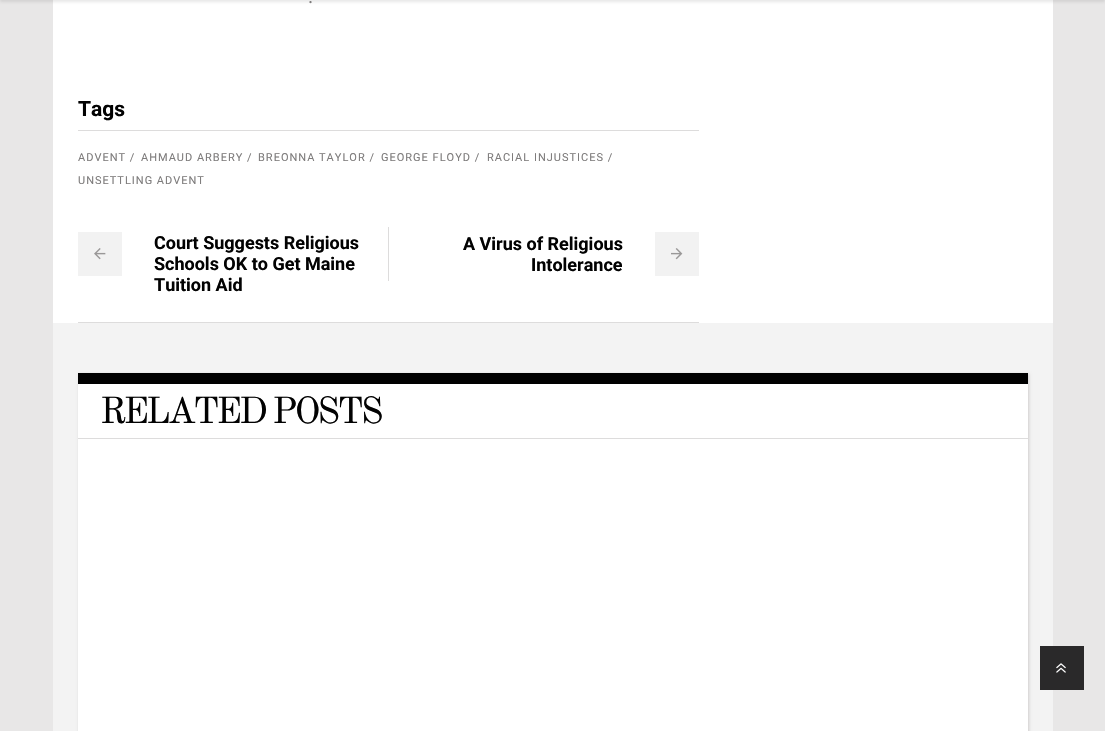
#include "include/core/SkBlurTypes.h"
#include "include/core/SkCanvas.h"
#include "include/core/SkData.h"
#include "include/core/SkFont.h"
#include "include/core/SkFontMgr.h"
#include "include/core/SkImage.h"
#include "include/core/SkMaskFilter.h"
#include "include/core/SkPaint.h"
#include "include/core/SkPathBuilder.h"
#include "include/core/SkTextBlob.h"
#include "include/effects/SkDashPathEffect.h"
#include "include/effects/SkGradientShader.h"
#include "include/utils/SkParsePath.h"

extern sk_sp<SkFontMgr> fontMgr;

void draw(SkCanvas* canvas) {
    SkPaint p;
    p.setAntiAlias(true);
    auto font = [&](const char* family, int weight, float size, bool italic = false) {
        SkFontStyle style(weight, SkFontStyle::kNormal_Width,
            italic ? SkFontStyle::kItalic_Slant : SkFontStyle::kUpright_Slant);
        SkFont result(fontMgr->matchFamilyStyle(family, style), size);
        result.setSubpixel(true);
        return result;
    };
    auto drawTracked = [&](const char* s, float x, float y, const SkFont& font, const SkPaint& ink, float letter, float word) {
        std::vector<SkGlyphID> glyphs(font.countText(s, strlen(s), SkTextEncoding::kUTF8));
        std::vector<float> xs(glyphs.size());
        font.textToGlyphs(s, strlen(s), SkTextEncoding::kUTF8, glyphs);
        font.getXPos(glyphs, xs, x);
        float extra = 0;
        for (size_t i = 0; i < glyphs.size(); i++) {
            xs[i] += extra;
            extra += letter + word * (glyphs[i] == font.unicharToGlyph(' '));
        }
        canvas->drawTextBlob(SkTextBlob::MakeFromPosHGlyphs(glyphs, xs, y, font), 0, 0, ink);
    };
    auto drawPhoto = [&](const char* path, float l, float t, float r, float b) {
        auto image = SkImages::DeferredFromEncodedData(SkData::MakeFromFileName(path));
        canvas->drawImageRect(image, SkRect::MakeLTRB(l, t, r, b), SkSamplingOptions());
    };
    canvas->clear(0xFFE8E7E7);
    p.setColor(0xFFFFFFFF);
    canvas->drawRect(SkRect::MakeLTRB(53, 0, 1053, 323), p);
    p.setColor(0x17000000);
    p.setMaskFilter(SkMaskFilter::MakeBlur(kNormal_SkBlurStyle, 1.5f));
    canvas->drawRect(SkRect::MakeLTRB(0, -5, 1105, 2), p);
    p.setMaskFilter(nullptr);
    p.setColor(0xFFF3F3F3);
    canvas->drawRect(SkRect::MakeLTRB(53, 323, 1053, 731), p);
    auto font1 = font("Lato", 400, 17, true);
    p.setColor(0xFF7E7C7C);
    canvas->drawString(".", 309, 3, font1, p);
    auto font2 = font("Roboto", 700, 21);
    p.setColor(0xFF020202);
    canvas->drawString("Tags", 78, 116, font2, p);
    p.setColor(0xFFDDDCDC);
    canvas->drawRect(SkRect::MakeLTRB(78, 130, 699, 131), p);
    auto font3 = font("Roboto", 400, 11);
    p.setColor(0xFF7E7C7C);
    {
        const struct { const char* s; float x, y; } items[] = {
            {"ADVENT /", 78, 161},
            {"AHMAUD ARBERY /", 141, 161},
            {"BREONNA TAYLOR /", 258, 161},
            {"GEORGE FLOYD /", 381, 161},
            {"RACIAL INJUSTICES /", 487, 161},
            {"UNSETTLING ADVENT", 78, 184},
        };
        for (auto [s, x, y] : items) {
            drawTracked(s, x, y, font3, p, 1, 0);
        }
    }
    p.setColor(0xFFDDDCDC);
    canvas->drawRect(SkRect::MakeLTRB(78, 322, 699, 323), p);
    p.setColor(0xFFF2F2F2);
    canvas->drawRect(SkRect::MakeLTRB(78, 232, 122, 276), p);
    drawPhoto("media/1.png", 94, 248, 106, 260);
    auto font4 = font("Roboto", 700, 18);
    p.setColor(0xFF020202);
    {
        const struct { const char* s; float x, y; } items[] = {
            {"Court Suggests Religious", 154, 249},
            {"Schools OK to Get Maine", 154, 270},
            {"Tuition Aid", 154, 291},
        };
        for (auto [s, x, y] : items) {
            canvas->drawString(s, x, y, font4, p);
        }
    }
    p.setColor(0xFFDDDCDC);
    canvas->drawRect(SkRect::MakeLTRB(388, 227, 389, 281), p);
    p.setColor(0xFF020202);
    canvas->drawString("A Virus of Religious", 463, 250, font4, p);
    canvas->drawString("Intolerance", 531, 271, font4, p);
    p.setColor(0xFFF2F2F2);
    canvas->drawRect(SkRect::MakeLTRB(655, 232, 699, 276), p);
    drawPhoto("media/2.png", 671, 248, 683, 260);
    p.setColor(0xFFCECCCC);
    p.setMaskFilter(SkMaskFilter::MakeBlur(kNormal_SkBlurStyle, 1.5f));
    canvas->drawRect(SkRect::MakeLTRB(79, 374, 1029, 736), p);
    p.setMaskFilter(nullptr);
    {
        const struct { float l, t, r, b; SkColor color; } items[] = {
            {78, 384, 1028, 731, 0xFFFFFFFF},
            {78, 373, 1028, 384, 0xFF000000},
            {78, 438, 1028, 439, 0xFFDDDCDC},
        };
        for (auto [l, t, r, b, color] : items) {
            p.setColor(color);
            canvas->drawRect(SkRect::MakeLTRB(l, t, r, b), p);
        }
    }
    auto font5 = font("Old Standard TT", 400, 37);
    p.setColor(0xFF020202);
    drawTracked("RELATED POSTS", 100, 423, font5, p, -3, 0);
    p.setColor(0xFF2A292A);
    canvas->drawRect(SkRect::MakeLTRB(1040, 646, 1084, 690), p);
    drawPhoto("media/3.png", 1056, 663, 1066, 673);
}
